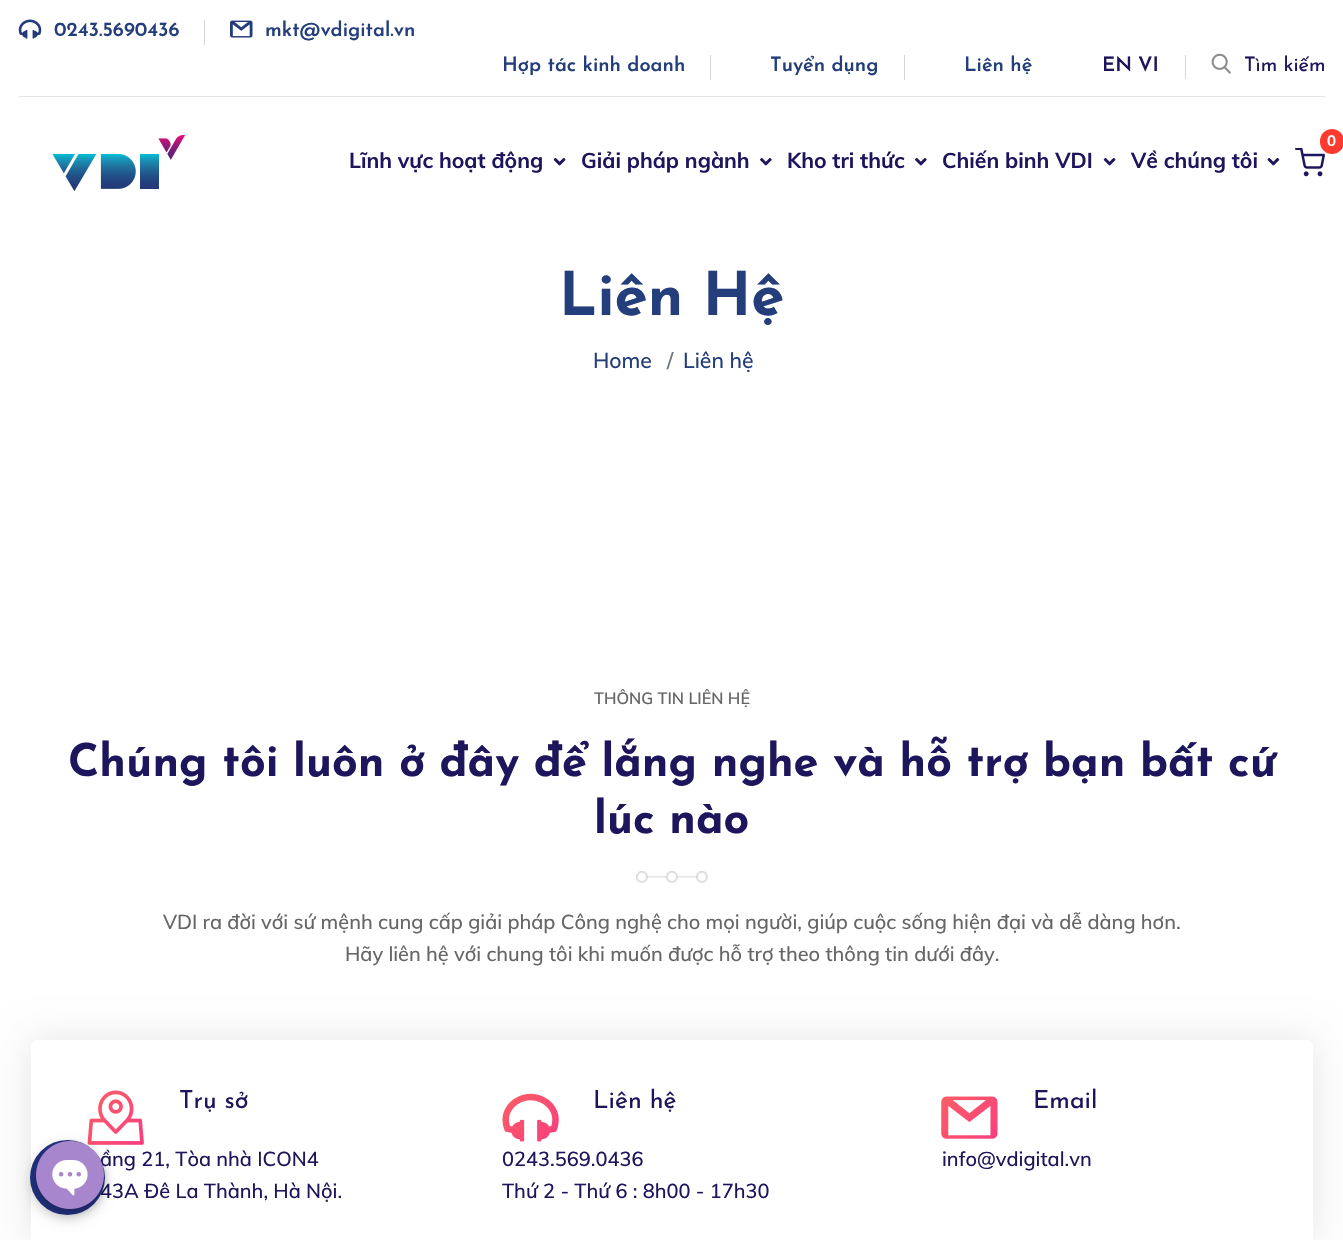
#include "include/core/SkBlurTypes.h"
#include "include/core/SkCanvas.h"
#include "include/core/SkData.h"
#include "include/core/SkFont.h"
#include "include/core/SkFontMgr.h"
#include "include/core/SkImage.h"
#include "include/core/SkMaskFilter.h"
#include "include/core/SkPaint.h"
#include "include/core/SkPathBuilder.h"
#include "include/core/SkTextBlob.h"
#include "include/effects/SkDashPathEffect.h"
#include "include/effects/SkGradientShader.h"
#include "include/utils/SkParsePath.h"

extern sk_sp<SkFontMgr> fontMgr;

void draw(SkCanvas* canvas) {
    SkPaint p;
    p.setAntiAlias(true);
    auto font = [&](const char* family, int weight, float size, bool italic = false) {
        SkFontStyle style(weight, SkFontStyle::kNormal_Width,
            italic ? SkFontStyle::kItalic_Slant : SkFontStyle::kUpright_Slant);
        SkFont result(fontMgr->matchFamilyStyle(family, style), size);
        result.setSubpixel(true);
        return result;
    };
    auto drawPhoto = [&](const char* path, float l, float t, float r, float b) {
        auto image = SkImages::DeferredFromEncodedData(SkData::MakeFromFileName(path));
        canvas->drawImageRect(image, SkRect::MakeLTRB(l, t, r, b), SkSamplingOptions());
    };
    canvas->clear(0xFFFFFFFF);
    p.setColor(0xFFE5E5E5);
    canvas->drawRect(SkRect::MakeLTRB(19, 96, 1325, 97), p);
    drawPhoto("media/1.png", 18, 19, 42, 39);
    auto font1 = font("Josefin Sans", 600, 20);
    p.setColor(0xFF233E7A);
    canvas->drawString("0243.5690436", 54, 36, font1, p);
    p.setColor(0xFFD5D5D5);
    canvas->drawRect(SkRect::MakeLTRB(204, 20, 205, 45), p);
    drawPhoto("media/2.png", 230, 20, 253, 38);
    p.setColor(0xFF233E7A);
    canvas->drawString("mkt@vdigital.vn", 265, 36, font1, p);
    canvas->drawString("Hợp tác kinh doanh", 502, 71, font1, p);
    p.setColor(0xFFD5D5D5);
    canvas->drawRect(SkRect::MakeLTRB(710, 55, 711, 80), p);
    p.setColor(0xFF233E7A);
    canvas->drawString("Tuyển dụng", 770, 71, font1, p);
    p.setColor(0xFFD5D5D5);
    canvas->drawRect(SkRect::MakeLTRB(904, 55, 905, 80), p);
    p.setColor(0xFF233E7A);
    canvas->drawString("Liên hệ", 964, 71, font1, p);
    p.setColor(0xFF1D165C);
    canvas->drawString("EN", 1102, 71, font1, p);
    canvas->drawString("VI", 1138, 71, font1, p);
    p.setColor(0xFFD5D5D5);
    canvas->drawRect(SkRect::MakeLTRB(1185, 55, 1186, 79), p);
    drawPhoto("media/3.png", 1211, 53, 1231, 74);
    auto font2 = font("Josefin Sans", 400, 20);
    p.setColor(0xFF1D165C);
    canvas->drawString("Tìm kiếm", 1244, 71, font2, p);
    drawPhoto("media/4.png", 52, 135, 185, 191);
    drawPhoto("media/5.png", 1295, 148, 1325, 177);
    p.setColor(0xFFFF3B30);
    canvas->drawRoundRect(SkRect::MakeLTRB(1320, 129, 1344, 154), 12, 12, p);
    auto font3 = font("Muli", 700, 15);
    p.setColor(0xFFFFFFFF);
    canvas->drawString("0", 1327, 146, font3, p);
    auto font4 = font("Muli", 700, 21.25f);
    p.setColor(0xFF1D165C);
    canvas->drawString("Lĩnh vực hoạt động", 349, 168, font4, p);
    drawPhoto("media/6.png", 553, 158, 566, 166);
    canvas->drawString("Giải pháp ngành", 581, 168, font4, p);
    drawPhoto("media/7.png", 760, 158, 772, 166);
    canvas->drawString("Kho tri thức", 787, 168, font4, p);
    drawPhoto("media/7.png", 915, 158, 927, 166);
    canvas->drawString("Chiến binh VDI", 942, 168, font4, p);
    drawPhoto("media/6.png", 1103, 158, 1116, 166);
    canvas->drawString("Về chúng tôi", 1131, 168, font4, p);
    drawPhoto("media/8.png", 1267, 158, 1280, 166);
    auto font5 = font("Josefin Sans", 700, 60);
    p.setColor(0xFF233E7A);
    canvas->drawString("Liên Hệ", 559, 315, font5, p);
    auto font6 = font("Muli", 500, 21.25f);
    canvas->drawString("Home", 593, 368, font6, p);
    p.setColor(0xFF6C757D);
    canvas->drawString("/", 667, 368, font6, p);
    p.setColor(0xFF233E7A);
    canvas->drawString("Liên hệ", 683, 368, font6, p);
    auto font7 = font("Muli", 600, 16.25f);
    p.setColor(0xFF666666);
    canvas->drawString("THÔNG TIN LIÊN HỆ", 594, 704, font7, p);
    auto font8 = font("Josefin Sans", 700, 45);
    p.setColor(0xFF1D165C);
    canvas->drawString("Chúng tôi luôn ở đây để lắng nghe và hỗ trợ bạn bất cứ", 68, 776, font8, p);
    canvas->drawString("lúc nào", 594, 833, font8, p);
    drawPhoto("media/9.png", 636, 871, 708, 883);
    auto font9 = font("Muli", 500, 20);
    p.setColor(0xFF666666);
    canvas->drawString("VDI ra đời với sứ mệnh cung cấp giải pháp Công nghệ cho mọi người, giúp cuộc sống hiện đại và dễ dàng hơn.", 163, 929, font9, p);
    canvas->drawString("Hãy liên hệ với chung tôi khi muốn được hỗ trợ theo thông tin dưới đây.", 345, 961, font9, p);
    canvas->save();
    canvas->clipPath(SkPathBuilder(SkPathFillType::kEvenOdd).moveTo(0, 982).lineTo(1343, 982).lineTo(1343, 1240).lineTo(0, 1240).close().moveTo(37, 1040).lineTo(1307, 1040).cubicTo(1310.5f, 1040, 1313, 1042.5f, 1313, 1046).lineTo(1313, 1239).cubicTo(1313, 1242.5f, 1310.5f, 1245, 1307, 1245).lineTo(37, 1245).cubicTo(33.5f, 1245, 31, 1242.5f, 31, 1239).lineTo(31, 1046).cubicTo(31, 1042.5f, 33.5f, 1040, 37, 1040).close().detach(), true);
    p.setColor(0x1A000000);
    p.setMaskFilter(SkMaskFilter::MakeBlur(kNormal_SkBlurStyle, 19));
    canvas->drawRoundRect(SkRect::MakeLTRB(31, 1040, 1313, 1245), 6, 6, p);
    p.setMaskFilter(nullptr);
    canvas->restore();
    p.setColor(0xFFFFFFFF);
    canvas->drawPath(SkPathBuilder().moveTo(37, 1040).lineTo(453, 1040).lineTo(453, 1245).lineTo(37, 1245).cubicTo(33.5f, 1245, 31, 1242.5f, 31, 1239).lineTo(31, 1046).cubicTo(31, 1042.5f, 33.5f, 1040, 37, 1040).close().detach(), p);
    drawPhoto("media/10.png", 87, 1090, 144, 1145);
    auto font10 = font("Josefin Sans", 400, 25);
    p.setColor(0xFF1D165C);
    canvas->drawString("Trụ sở", 179, 1108, font10, p);
    canvas->drawString("ầng 21, Tòa nhà ICON4", 100, 1166, font9, p);
    canvas->drawString("43A Đê La Thành, Hà Nội.", 100, 1198, font9, p);
    drawPhoto("media/11.png", 502, 1093, 559, 1142);
    canvas->drawString("Liên hệ", 593, 1108, font10, p);
    canvas->drawString("0243.569.0436", 502, 1166, font9, p);
    canvas->drawString("Thứ 2 - Thứ 6 : 8h00 - 17h30", 502, 1198, font9, p);
    p.setColor(0xFFFFFFFF);
    canvas->drawPath(SkPathBuilder().moveTo(891, 1040).lineTo(1307, 1040).cubicTo(1310.5f, 1040, 1313, 1042.5f, 1313, 1046).lineTo(1313, 1239).cubicTo(1313, 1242.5f, 1310.5f, 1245, 1307, 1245).lineTo(891, 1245).close().detach(), p);
    drawPhoto("media/12.png", 941, 1096, 998, 1139);
    p.setColor(0xFF1D165C);
    canvas->drawString("Email", 1033, 1108, font10, p);
    canvas->drawString("info@vdigital.vn", 942, 1166, font9, p);
    p.setColor(0x26000000);
    p.setMaskFilter(SkMaskFilter::MakeBlur(kNormal_SkBlurStyle, 6));
    canvas->drawRoundRect(SkRect::MakeLTRB(30, 1145, 105, 1220), 37.5f, 37.5f, p);
    p.setMaskFilter(nullptr);
    p.setColor(0xFF21307D);
    canvas->drawCircle(67.5f, 1177.5f, 37.5f, p);
    p.setColor(0x40000000);
    p.setMaskFilter(SkMaskFilter::MakeBlur(kNormal_SkBlurStyle, 4));
    canvas->drawRoundRect(SkRect::MakeLTRB(36, 1145, 104, 1213), 34, 34, p);
    p.setMaskFilter(nullptr);
    drawPhoto("media/13.png", 36, 1141, 104, 1209);
}
